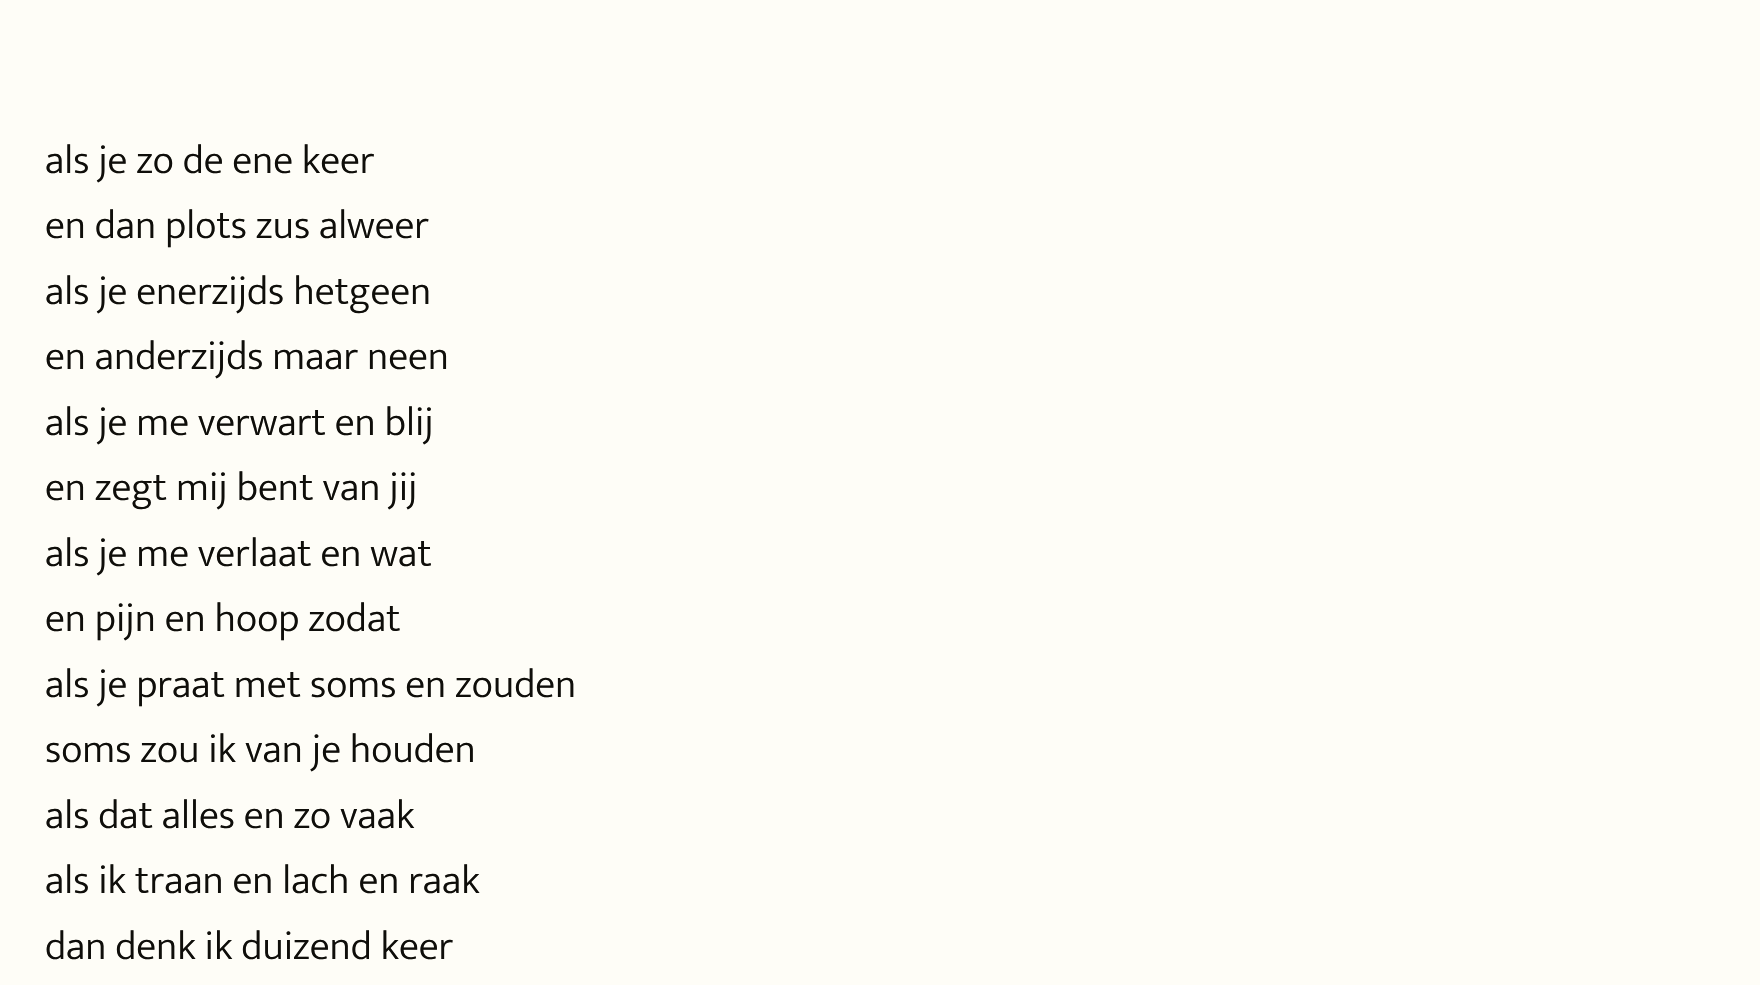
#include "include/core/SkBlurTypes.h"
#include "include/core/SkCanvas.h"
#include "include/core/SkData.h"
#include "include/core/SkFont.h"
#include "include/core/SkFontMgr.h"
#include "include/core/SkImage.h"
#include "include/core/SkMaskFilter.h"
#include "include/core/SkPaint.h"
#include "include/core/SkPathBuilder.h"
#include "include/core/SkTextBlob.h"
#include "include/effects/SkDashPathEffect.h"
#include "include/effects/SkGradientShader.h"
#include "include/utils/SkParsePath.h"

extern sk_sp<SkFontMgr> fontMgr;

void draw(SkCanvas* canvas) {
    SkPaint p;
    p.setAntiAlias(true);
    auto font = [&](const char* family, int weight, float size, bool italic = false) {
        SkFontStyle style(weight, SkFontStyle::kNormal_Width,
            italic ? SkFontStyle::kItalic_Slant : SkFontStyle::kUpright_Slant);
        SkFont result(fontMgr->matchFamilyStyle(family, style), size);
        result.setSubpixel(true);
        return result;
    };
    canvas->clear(0xFFFEFDF7);
    auto font1 = font("Mukta", 300, 40.5f);
    p.setColor(0xFF0F0E0A);
    {
        const struct { const char* s; float x, y; } items[] = {
            {"als je zo de ene keer", 45, 173},
            {"en dan plots zus alweer", 45, 238},
            {"als je enerzijds hetgeen", 45, 304},
            {"en anderzijds maar neen", 45, 369},
            {"als je me verwart en blij", 45, 435},
            {"en zegt mij bent van jij", 45, 500},
            {"als je me verlaat en wat", 45, 566},
            {"en pijn en hoop zodat", 45, 631},
            {"als je praat met soms en zouden", 45, 697},
            {"soms zou ik van je houden", 45, 762},
            {"als dat alles en zo vaak", 45, 828},
            {"als ik traan en lach en raak", 45, 893},
            {"dan denk ik duizend keer", 45, 959},
        };
        for (auto [s, x, y] : items) {
            canvas->drawString(s, x, y, font1, p);
        }
    }
}
